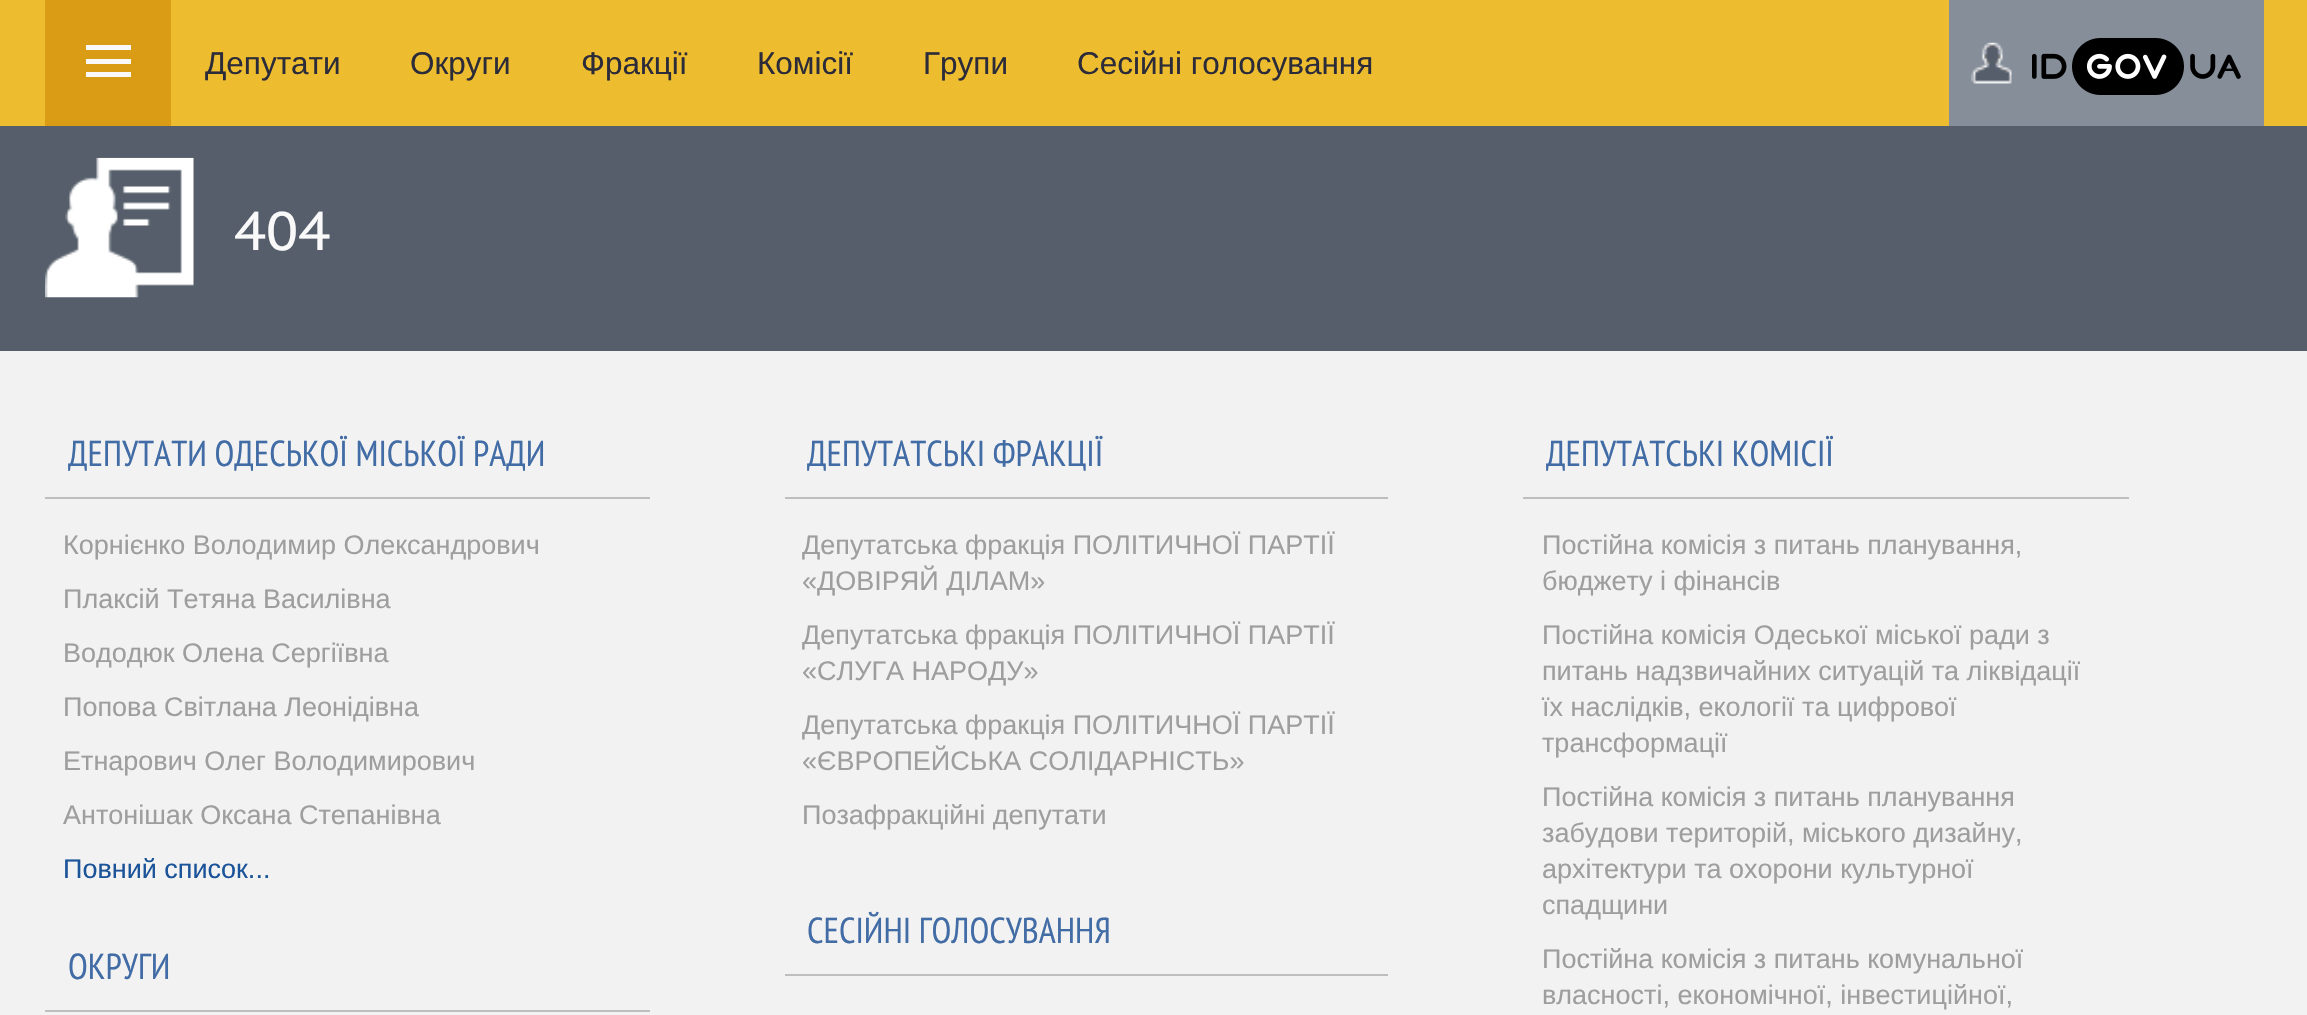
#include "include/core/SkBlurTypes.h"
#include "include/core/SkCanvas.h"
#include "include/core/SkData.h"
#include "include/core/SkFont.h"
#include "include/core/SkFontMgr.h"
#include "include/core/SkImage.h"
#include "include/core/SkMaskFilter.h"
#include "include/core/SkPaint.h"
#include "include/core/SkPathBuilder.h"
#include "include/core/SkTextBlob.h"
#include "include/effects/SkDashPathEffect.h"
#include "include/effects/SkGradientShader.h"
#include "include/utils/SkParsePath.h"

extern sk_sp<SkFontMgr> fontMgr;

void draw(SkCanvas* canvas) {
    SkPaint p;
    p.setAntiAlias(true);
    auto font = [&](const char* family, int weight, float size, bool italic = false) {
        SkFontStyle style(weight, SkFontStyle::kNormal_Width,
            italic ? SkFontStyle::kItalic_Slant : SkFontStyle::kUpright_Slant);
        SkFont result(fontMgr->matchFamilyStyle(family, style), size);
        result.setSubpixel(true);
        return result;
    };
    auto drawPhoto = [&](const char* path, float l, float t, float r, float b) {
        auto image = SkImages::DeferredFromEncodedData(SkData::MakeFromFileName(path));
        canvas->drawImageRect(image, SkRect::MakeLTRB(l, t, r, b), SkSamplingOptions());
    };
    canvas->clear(0xFFF2F2F2);
    {
        const struct { float l, t, r, b; SkColor color; } items[] = {
            {0, 0, 2307, 126, 0xFFEDBD2F},
            {45, 0, 171, 126, 0xFFDA9C15},
            {86, 45, 131, 50, 0xFFF9F9F9},
            {86, 59, 131, 64, 0xFFF9F9F9},
            {86, 72, 131, 77, 0xFFF9F9F9},
        };
        for (auto [l, t, r, b, color] : items) {
            p.setColor(color);
            canvas->drawRect(SkRect::MakeLTRB(l, t, r, b), p);
        }
    }
    auto font1 = font("Liberation Sans", 400, 31.5f);
    p.setColor(0xFF2C2B39);
    {
        const struct { const char* s; float x, y; } items[] = {
            {"Депутати", 205, 74},
            {"Округи", 410, 74},
            {"Фракції", 581, 74},
            {"Комісії", 757, 74},
            {"Групи", 923, 74},
            {"Сесійні голосування", 1077, 74},
        };
        for (auto [s, x, y] : items) {
            canvas->drawString(s, x, y, font1, p);
        }
    }
    p.setColor(0xFF858E99);
    canvas->drawRect(SkRect::MakeLTRB(1949, 0, 2264, 126), p);
    drawPhoto("media/1.png", 1971, 42, 2012, 84);
    drawPhoto("media/2.png", 2032, 38, 2241, 95);
    p.setColor(0xFF555E6A);
    canvas->drawRect(SkRect::MakeLTRB(0, 126, 2307, 351), p);
    drawPhoto("media/3.png", 45, 157, 194, 298);
    auto font2 = font("PT Sans Caption", 400, 54);
    p.setColor(0xFFF9F9F9);
    canvas->drawString("404", 234, 250, font2, p);
    p.setColor(0xFFBEBEBE);
    canvas->drawRect(SkRect::MakeLTRB(45, 497, 650, 499), p);
    auto font3 = font("PT Sans Narrow", 400, 36);
    p.setColor(0xFF426CA5);
    canvas->drawString("ДЕПУТАТИ ОДЕСЬКОЇ МІСЬКОЇ РАДИ", 68, 466, font3, p);
    auto font4 = font("Liberation Sans", 400, 27);
    p.setColor(0xFF9E9E9E);
    {
        const struct { const char* s; float x, y; } items[] = {
            {"Корнієнко Володимир Олександрович", 63, 554},
            {"Плаксій Тетяна Василівна", 63, 608},
            {"Вододюк Олена Сергіївна", 63, 662},
            {"Попова Світлана Леонідівна", 63, 716},
            {"Етнарович Олег Володимирович", 63, 770},
            {"Антонішак Оксана Степанівна", 63, 824},
        };
        for (auto [s, x, y] : items) {
            canvas->drawString(s, x, y, font4, p);
        }
    }
    p.setColor(0xFF1C5499);
    canvas->drawString("Повний список...", 63, 878, font4, p);
    p.setColor(0xFFBEBEBE);
    canvas->drawRect(SkRect::MakeLTRB(45, 1010, 650, 1012), p);
    p.setColor(0xFF426CA5);
    canvas->drawString("ОКРУГИ", 68, 979, font3, p);
    p.setColor(0xFFBEBEBE);
    canvas->drawRect(SkRect::MakeLTRB(785, 497, 1388, 499), p);
    p.setColor(0xFF426CA5);
    canvas->drawString("ДЕПУТАТСЬКІ ФРАКЦІЇ", 807, 466, font3, p);
    p.setColor(0xFF9E9E9E);
    {
        const struct { const char* s; float x, y; } items[] = {
            {"Депутатська фракція ПОЛІТИЧНОЇ ПАРТІЇ", 802, 554},
            {"«ДОВІРЯЙ ДІЛАМ»", 802, 590},
            {"Депутатська фракція ПОЛІТИЧНОЇ ПАРТІЇ", 802, 644},
            {"«СЛУГА НАРОДУ»", 802, 680},
            {"Депутатська фракція ПОЛІТИЧНОЇ ПАРТІЇ", 802, 734},
            {"«ЄВРОПЕЙСЬКА СОЛІДАРНІСТЬ»", 802, 770},
            {"Позафракційні депутати", 802, 824},
        };
        for (auto [s, x, y] : items) {
            canvas->drawString(s, x, y, font4, p);
        }
    }
    p.setColor(0xFFBEBEBE);
    canvas->drawRect(SkRect::MakeLTRB(785, 974, 1388, 976), p);
    p.setColor(0xFF426CA5);
    canvas->drawString("СЕСІЙНІ ГОЛОСУВАННЯ", 807, 943, font3, p);
    p.setColor(0xFFBEBEBE);
    canvas->drawRect(SkRect::MakeLTRB(1523, 497, 2129, 499), p);
    p.setColor(0xFF426CA5);
    canvas->drawString("ДЕПУТАТСЬКІ КОМІСІЇ", 1546, 466, font3, p);
    p.setColor(0xFF9E9E9E);
    {
        const struct { const char* s; float x, y; } items[] = {
            {"Постійна комісія з питань планування,", 1542, 554},
            {"бюджету і фінансів", 1542, 590},
            {"Постійна комісія Одеської міської ради з", 1542, 644},
            {"питань надзвичайних ситуацій та ліквідації", 1542, 680},
            {"їх наслідків, екології та цифрової", 1542, 716},
            {"трансформації", 1542, 752},
            {"Постійна комісія з питань планування", 1542, 806},
            {"забудови територій, міського дизайну,", 1542, 842},
            {"архітектури та охорони культурної", 1542, 878},
            {"спадщини", 1542, 914},
            {"Постійна комісія з питань комунальної", 1542, 968},
            {"власності, економічної, інвестиційної,", 1542, 1004},
        };
        for (auto [s, x, y] : items) {
            canvas->drawString(s, x, y, font4, p);
        }
    }
}
